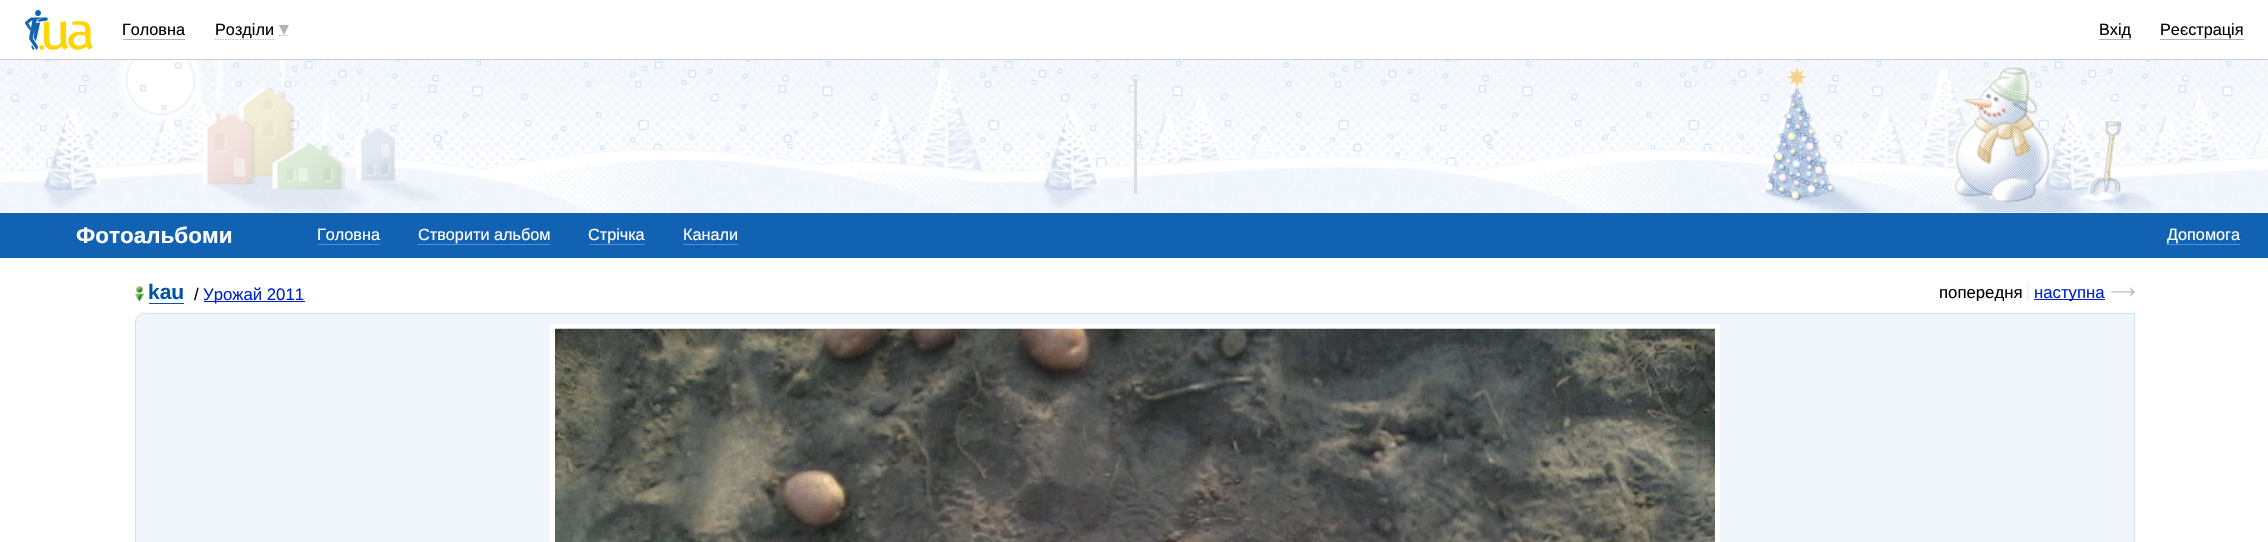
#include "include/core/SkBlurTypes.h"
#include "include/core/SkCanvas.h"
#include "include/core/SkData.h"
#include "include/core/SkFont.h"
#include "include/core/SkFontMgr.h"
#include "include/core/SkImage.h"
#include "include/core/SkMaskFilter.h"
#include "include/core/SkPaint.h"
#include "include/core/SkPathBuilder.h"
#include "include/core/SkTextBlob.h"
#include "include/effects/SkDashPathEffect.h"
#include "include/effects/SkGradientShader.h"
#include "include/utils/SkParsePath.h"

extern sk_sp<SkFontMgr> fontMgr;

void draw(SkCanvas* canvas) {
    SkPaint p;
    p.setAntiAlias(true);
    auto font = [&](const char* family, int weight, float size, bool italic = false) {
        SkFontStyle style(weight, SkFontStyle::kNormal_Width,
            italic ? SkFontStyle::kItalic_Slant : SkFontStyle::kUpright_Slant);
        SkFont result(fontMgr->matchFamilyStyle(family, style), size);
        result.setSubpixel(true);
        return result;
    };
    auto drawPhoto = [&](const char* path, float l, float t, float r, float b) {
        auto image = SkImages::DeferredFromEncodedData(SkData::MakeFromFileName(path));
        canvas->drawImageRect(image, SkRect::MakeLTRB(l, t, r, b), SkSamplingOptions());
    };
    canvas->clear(0xFFFFFFFF);
    p.setColor(0xFFCCCCCC);
    canvas->drawRect(SkRect::MakeLTRB(0, 59, 2268, 60), p);
    drawPhoto("media/1.png", 25, 10, 93, 50);
    auto font1 = font("Liberation Sans", 400, 16.25f);
    p.setColor(0xFF000000);
    canvas->drawString("Головна", 122, 35, font1, p);
    p.setColor(0xFFB3B3B3);
    canvas->drawRect(SkRect::MakeLTRB(123, 39, 185, 40), p);
    p.setStyle(SkPaint::kStroke_Style);
    p.setStrokeWidth(1.2f);
    p.setPathEffect(SkDashPathEffect::Make({{1.25f, 1.25f}}, 0));
    canvas->drawPath(SkPathBuilder().moveTo(215, 39.5f).lineTo(274, 39.5f).detach(), p);
    p.setPathEffect(nullptr);
    p.setPathEffect(SkDashPathEffect::Make({{1.25f, 1.25f}}, 0));
    canvas->drawPath(SkPathBuilder().moveTo(279, 35.5f).lineTo(289, 35.5f).detach(), p);
    p.setPathEffect(nullptr);
    p.setStyle(SkPaint::kFill_Style);
    p.setColor(0xFF000000);
    canvas->drawString("Розділи", 215, 35, font1, p);
    p.setColor(0xFFB3B3B3);
    canvas->drawPath(SkPathBuilder().moveTo(279, 25).lineTo(289, 25).lineTo(284, 35).close().detach(), p);
    p.setColor(0xFF000000);
    canvas->drawString("Вхід", 2099, 35, font1, p);
    p.setColor(0xFFB3B3B3);
    canvas->drawRect(SkRect::MakeLTRB(2099, 39, 2131, 40), p);
    p.setColor(0xFF000000);
    canvas->drawString("Реєстрація", 2160, 35, font1, p);
    p.setColor(0xFFB3B3B3);
    canvas->drawRect(SkRect::MakeLTRB(2160, 39, 2244, 40), p);
    drawPhoto("media/2.png", 0, 60, 2268, 213);
    p.setColor(0xFFDDDDDD);
    canvas->drawRect(SkRect::MakeLTRB(1134, 79, 1137, 194), p);
    p.setColor(0xFF1162B3);
    canvas->drawRect(SkRect::MakeLTRB(0, 213, 2268, 258), p);
    auto font2 = font("Liberation Sans", 700, 22.5f);
    p.setColor(0xFFFFFFFF);
    canvas->drawString("Фотоальбоми", 76, 243, font2, p);
    canvas->drawString("Головна", 317, 240, font1, p);
    p.setColor(0xFF5891CA);
    canvas->drawRect(SkRect::MakeLTRB(318, 244, 380, 245), p);
    p.setColor(0xFFFFFFFF);
    canvas->drawString("Створити альбом", 418, 240, font1, p);
    p.setColor(0xFF5891CA);
    canvas->drawRect(SkRect::MakeLTRB(418, 244, 550, 245), p);
    p.setColor(0xFFFFFFFF);
    canvas->drawString("Стрічка", 588, 240, font1, p);
    p.setColor(0xFF5891CA);
    canvas->drawRect(SkRect::MakeLTRB(589, 244, 645, 245), p);
    p.setColor(0xFFFFFFFF);
    canvas->drawString("Канали", 683, 240, font1, p);
    p.setColor(0xFF5891CA);
    canvas->drawRect(SkRect::MakeLTRB(683, 244, 738, 245), p);
    p.setColor(0xFFFFFFFF);
    canvas->drawString("Допомога", 2167, 240, font1, p);
    p.setColor(0xFF5891CA);
    canvas->drawRect(SkRect::MakeLTRB(2166, 244, 2240, 245), p);
    p.setColor(0xFF0053A5);
    canvas->drawRect(SkRect::MakeLTRB(149, 303, 184, 304), p);
    drawPhoto("media/3.png", 135, 286, 144, 302);
    auto font3 = font("Liberation Sans", 700, 21);
    canvas->drawString("kau", 148, 299, font3, p);
    auto font4 = font("Liberation Sans", 400, 16.75f);
    p.setColor(0xFF000000);
    canvas->drawString("/", 194, 300, font4, p);
    p.setColor(0xFF0022CC);
    canvas->drawRect(SkRect::MakeLTRB(204, 301, 305, 302), p);
    canvas->drawString("Урожай 2011", 203, 300, font4, p);
    p.setStyle(SkPaint::kStroke_Style);
    p.setColor(0xFFDDDDDD);
    p.setPathEffect(SkDashPathEffect::Make({{1.25f, 1.25f}}, 0));
    canvas->drawPath(SkPathBuilder().moveTo(2028, 282.5f).lineTo(2028, 301).detach(), p);
    p.setPathEffect(nullptr);
    canvas->save();
    canvas->clipRect(SkRect::MakeLTRB(1929, 283, 2135, 301));
    p.setStyle(SkPaint::kFill_Style);
    p.setColor(0xFF000000);
    canvas->drawString("попередня", 1939, 298, font4, p);
    canvas->restore();
    p.setColor(0xFF0022CC);
    canvas->drawRect(SkRect::MakeLTRB(2034, 299, 2105, 300), p);
    canvas->save();
    canvas->clipRect(SkRect::MakeLTRB(1929, 283, 2135, 301));
    canvas->drawString("наступна", 2034, 298, font4, p);
    canvas->restore();
    drawPhoto("media/4.png", 2111, 287, 2135, 297);
    p.setColor(0xFFF0F6FC);
    canvas->drawRect(SkRect::MakeLTRB(135.5f, 313.5f, 2134.5f, 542.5f), p);
    p.setStyle(SkPaint::kStroke_Style);
    p.setStrokeWidth(1);
    p.setColor(0xFFCEE3F7);
    canvas->drawRect(SkRect::MakeLTRB(135.5f, 313.5f, 2134.5f, 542.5f), p);
    drawPhoto("media/5.png", 135, 312, 145, 323);
    p.setStrokeWidth(5);
    p.setColor(0xFFFFFFFF);
    canvas->drawRect(SkRect::MakeLTRB(552.5f, 326.5f, 1717.5f, 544.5f), p);
    drawPhoto("media/6.png", 555, 328, 1715, 542);
}
